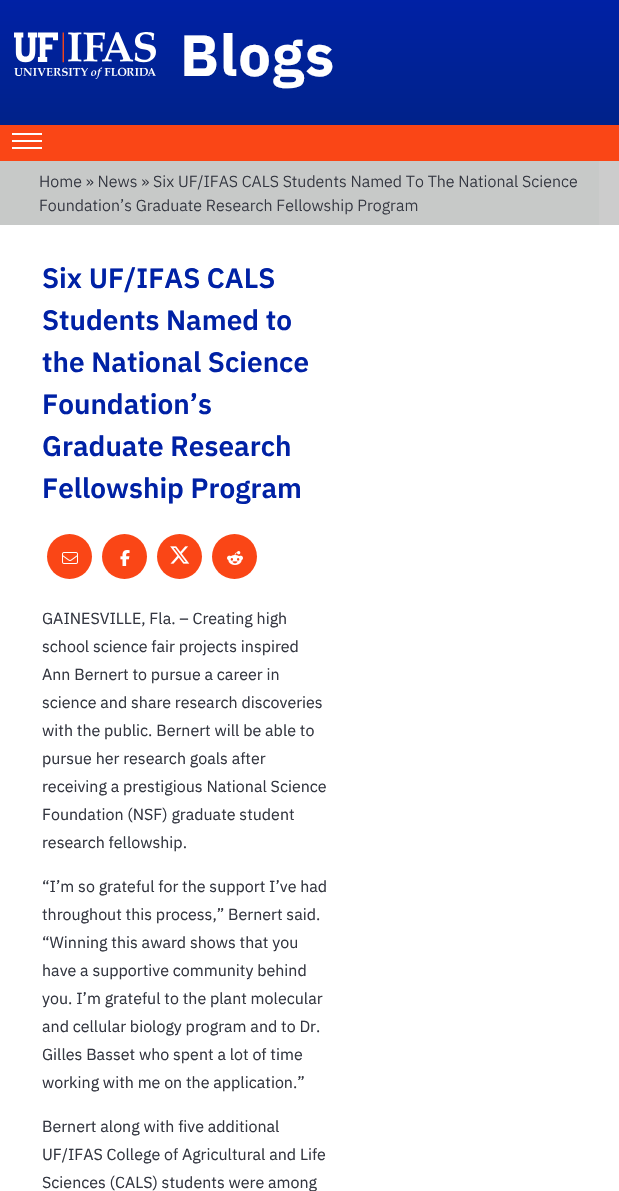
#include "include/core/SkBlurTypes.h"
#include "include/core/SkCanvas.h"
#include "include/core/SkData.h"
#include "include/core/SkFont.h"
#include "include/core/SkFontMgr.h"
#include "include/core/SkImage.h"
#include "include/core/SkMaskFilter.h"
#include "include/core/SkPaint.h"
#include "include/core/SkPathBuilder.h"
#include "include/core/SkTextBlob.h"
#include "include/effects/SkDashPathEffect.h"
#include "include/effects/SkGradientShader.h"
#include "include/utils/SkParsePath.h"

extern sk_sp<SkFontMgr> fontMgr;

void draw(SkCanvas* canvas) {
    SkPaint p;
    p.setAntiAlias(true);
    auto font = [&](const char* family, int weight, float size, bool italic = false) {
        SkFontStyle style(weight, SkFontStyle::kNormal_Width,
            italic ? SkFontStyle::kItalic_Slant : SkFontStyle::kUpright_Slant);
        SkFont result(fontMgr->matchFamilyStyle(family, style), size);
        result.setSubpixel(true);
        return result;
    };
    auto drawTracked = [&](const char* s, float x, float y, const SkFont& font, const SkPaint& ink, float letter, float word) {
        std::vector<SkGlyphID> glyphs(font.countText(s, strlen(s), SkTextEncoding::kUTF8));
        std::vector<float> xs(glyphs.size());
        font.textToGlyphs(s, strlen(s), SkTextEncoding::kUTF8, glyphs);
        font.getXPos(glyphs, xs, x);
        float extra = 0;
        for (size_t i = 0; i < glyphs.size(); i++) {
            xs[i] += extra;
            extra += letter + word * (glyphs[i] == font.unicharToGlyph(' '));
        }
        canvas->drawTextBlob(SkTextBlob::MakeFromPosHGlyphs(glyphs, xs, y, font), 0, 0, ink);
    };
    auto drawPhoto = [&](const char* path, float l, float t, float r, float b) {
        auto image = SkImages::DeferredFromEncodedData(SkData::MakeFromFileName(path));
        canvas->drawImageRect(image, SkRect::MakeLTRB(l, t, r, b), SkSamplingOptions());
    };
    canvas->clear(0xFFFFFFFF);
    {
        const SkColor colors[] = {0xFF0021A5, 0xFF002382};
        const float stops[] = {0, 1};
        const SkPoint ends[] = {{310, 0}, {310, 160}};
        p.setShader(SkGradientShader::MakeLinear(ends, colors, stops, 2, SkTileMode::kClamp));
        p.setAlpha(255);
    }
    canvas->drawRect(SkRect::MakeLTRB(0, 0, 619, 125), p);
    drawPhoto("media/1.png", 14, 32, 156, 79);
    auto font1 = font("IBM Plex Sans", 700, 58);
    p.setShader(nullptr);
    p.setColor(0xFFFFFFFF);
    drawTracked("Blogs", 180, 76, font1, p, 1, 0);
    {
        const struct { float l, t, r, b; SkColor color; } items[] = {
            {0, 125, 619, 161, 0xFFFA4616},
            {12, 147, 42, 149, 0xFFFEFEFE},
            {12, 140, 42, 142, 0xFFFEFEFE},
            {12, 133, 42, 135, 0xFFFEFEFE},
            {599, 161, 619, 225, 0xFFCCCCCC},
            {0, 161, 599, 225, 0xFFC7C9C8},
        };
        for (auto [l, t, r, b, color] : items) {
            p.setColor(color);
            canvas->drawRect(SkRect::MakeLTRB(l, t, r, b), p);
        }
    }
    auto font2 = font("IBM Plex Sans", 300, 16);
    p.setColor(0xFF343741);
    canvas->drawString("Home » News » Six UF/IFAS CALS Students Named To The National Science", 39, 187, font2, p);
    canvas->drawString("Foundation’s Graduate Research Fellowship Program", 39, 211, font2, p);
    auto font3 = font("IBM Plex Sans", 600, 28);
    p.setColor(0xFF0021A5);
    {
        const struct { const char* s; float x, y; } items[] = {
            {"Six UF/IFAS CALS", 42, 288},
            {"Students Named to", 42, 330},
            {"the National Science", 42, 372},
            {"Foundation’s", 42, 414},
            {"Graduate Research", 42, 456},
            {"Fellowship Program", 42, 498},
        };
        for (auto [s, x, y] : items) {
            canvas->drawString(s, x, y, font3, p);
        }
    }
    p.setColor(0xFFFA4616);
    canvas->drawCircle(69.5f, 556.5f, 22.5f, p);
    drawPhoto("media/2.png", 62, 552, 78, 564);
    canvas->drawCircle(124.5f, 556.5f, 22.5f, p);
    drawPhoto("media/3.png", 120, 550, 130, 566);
    canvas->drawCircle(179.5f, 556.5f, 22.5f, p);
    drawPhoto("media/4.png", 170, 546, 190, 564);
    canvas->drawCircle(234.5f, 556.5f, 22.5f, p);
    drawPhoto("media/5.png", 227, 551, 243, 565);
    auto font4 = font("IBM Plex Sans", 400, 16);
    p.setColor(0xFF343741);
    {
        const struct { const char* s; float x, y; } items[] = {
            {"GAINESVILLE, Fla. – Creating high", 42, 624},
            {"school science fair projects inspired", 42, 652},
            {"Ann Bernert to pursue a career in", 42, 680},
            {"science and share research discoveries", 42, 708},
            {"with the public. Bernert will be able to", 42, 736},
            {"pursue her research goals after", 42, 764},
            {"receiving a prestigious National Science", 42, 792},
            {"Foundation (NSF) graduate student", 42, 820},
            {"research fellowship.", 42, 848},
            {"“I’m so grateful for the support I’ve had", 42, 892},
            {"throughout this process,” Bernert said.", 42, 920},
            {"“Winning this award shows that you", 42, 948},
            {"have a supportive community behind", 42, 976},
            {"you. I’m grateful to the plant molecular", 42, 1004},
            {"and cellular biology program and to Dr.", 42, 1032},
            {"Gilles Basset who spent a lot of time", 42, 1060},
            {"working with me on the application.”", 42, 1088},
            {"Bernert along with five additional", 42, 1132},
            {"UF/IFAS College of Agricultural and Life", 42, 1160},
            {"Sciences (CALS) students were among", 42, 1188},
        };
        for (auto [s, x, y] : items) {
            canvas->drawString(s, x, y, font4, p);
        }
    }
}
